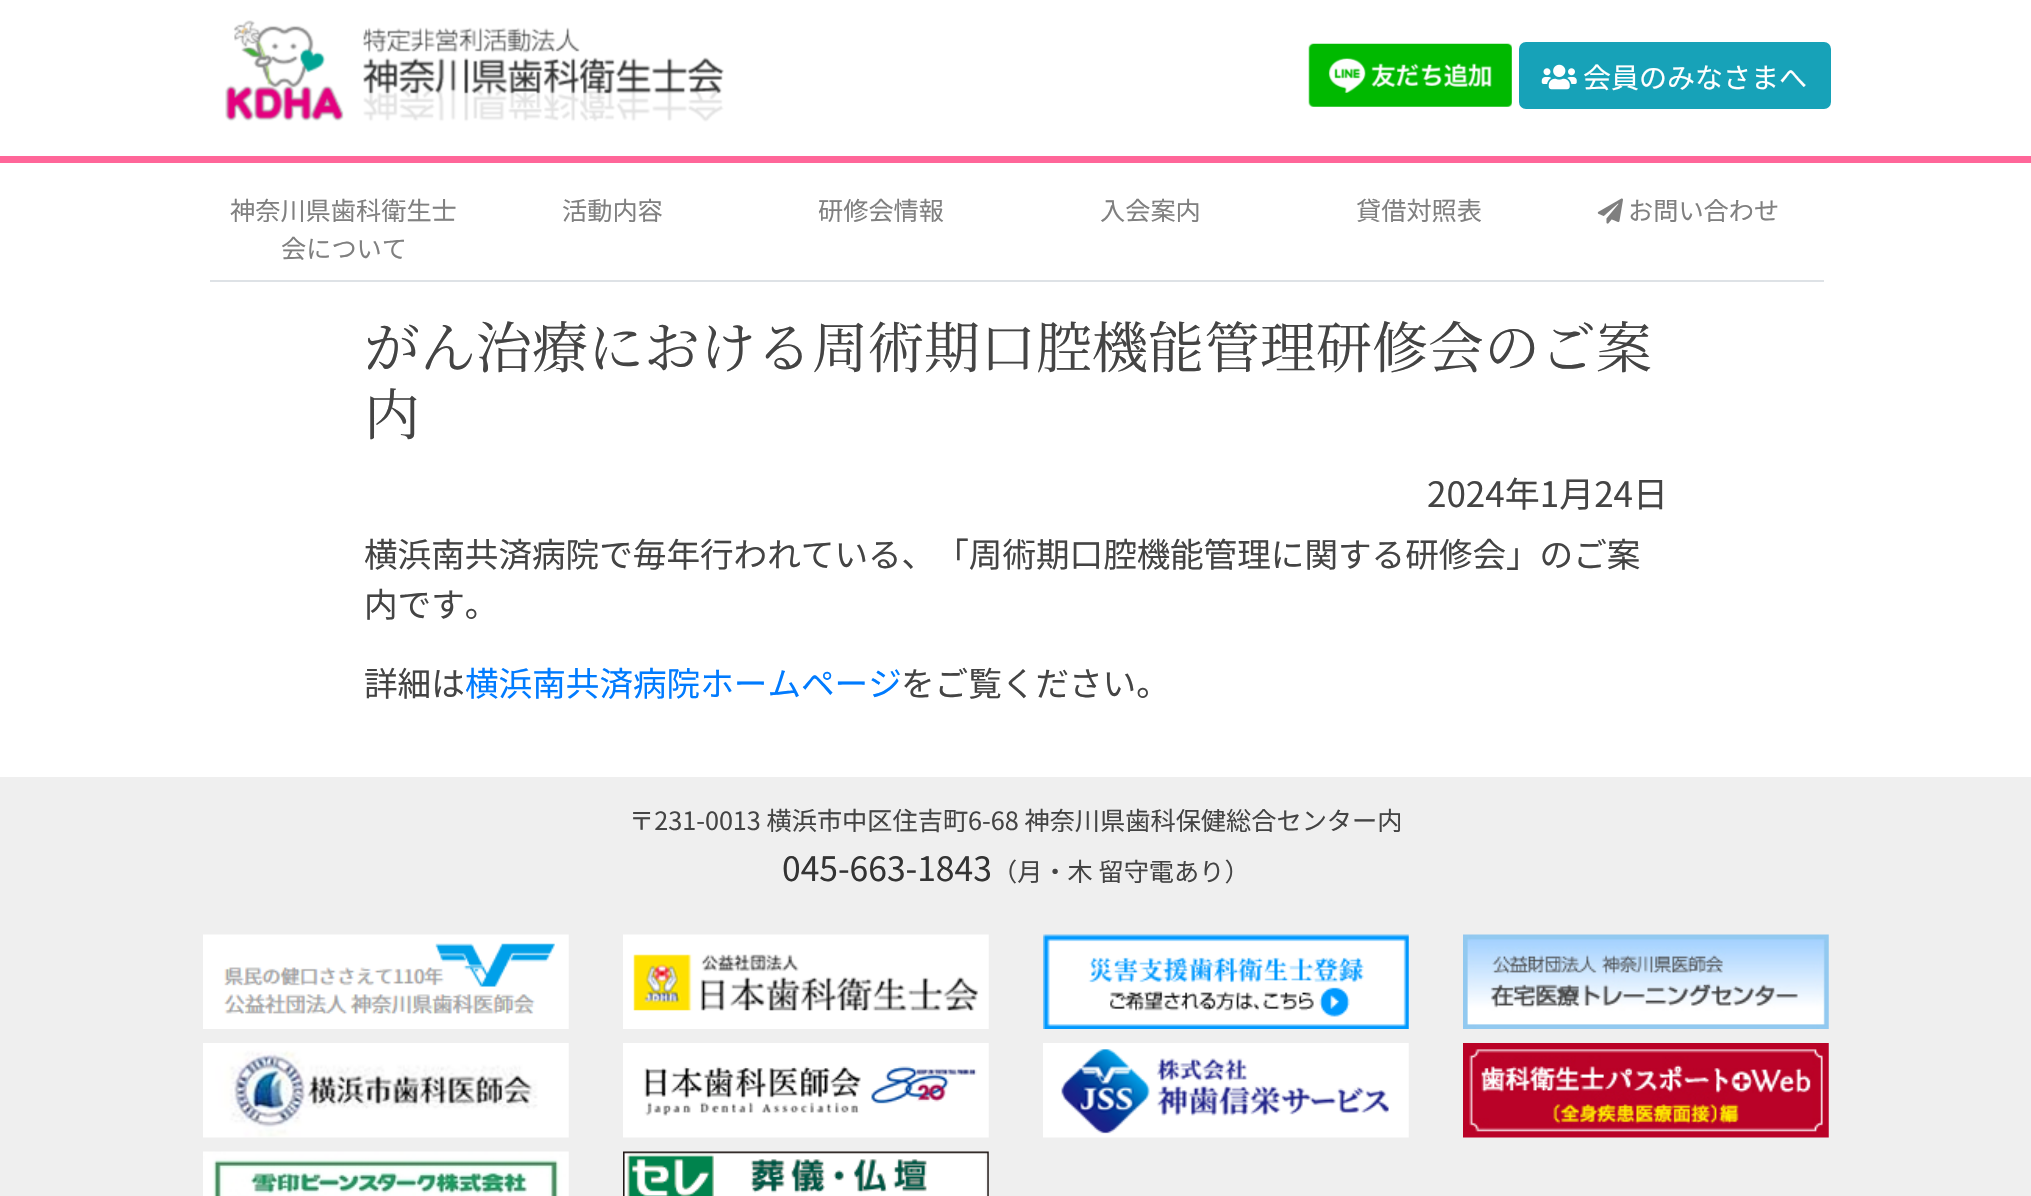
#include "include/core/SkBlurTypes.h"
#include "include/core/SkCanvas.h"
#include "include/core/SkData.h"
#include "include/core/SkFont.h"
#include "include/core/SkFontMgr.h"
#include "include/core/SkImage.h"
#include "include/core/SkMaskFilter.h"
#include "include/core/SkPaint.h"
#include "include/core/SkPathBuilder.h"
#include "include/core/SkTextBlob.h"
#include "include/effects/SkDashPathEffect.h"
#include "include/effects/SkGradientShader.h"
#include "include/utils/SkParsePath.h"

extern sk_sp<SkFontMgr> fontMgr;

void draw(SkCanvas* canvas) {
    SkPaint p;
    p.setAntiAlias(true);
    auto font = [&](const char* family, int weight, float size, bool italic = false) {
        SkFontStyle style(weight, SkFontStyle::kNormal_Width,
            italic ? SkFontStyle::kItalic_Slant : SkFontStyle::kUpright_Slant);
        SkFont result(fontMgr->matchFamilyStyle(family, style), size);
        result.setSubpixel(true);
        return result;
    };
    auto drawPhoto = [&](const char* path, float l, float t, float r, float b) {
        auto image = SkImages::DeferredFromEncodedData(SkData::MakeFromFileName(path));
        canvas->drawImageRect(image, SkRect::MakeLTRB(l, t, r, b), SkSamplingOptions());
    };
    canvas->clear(0xFFFFFFFF);
    drawPhoto("media/1.png", 225, 20, 724, 122);
    drawPhoto("media/2.png", 1308, 43, 1512, 107);
    p.setColor(0xFF17A2B8);
    canvas->drawRoundRect(SkRect::MakeLTRB(1520, 43, 1830, 108), 6, 6, p);
    p.setStyle(SkPaint::kStroke_Style);
    p.setStrokeWidth(2);
    canvas->drawRoundRect(SkRect::MakeLTRB(1520, 43, 1830, 108), 6, 6, p);
    drawPhoto("media/3.png", 1541, 64, 1577, 90);
    auto font1 = font("Noto Sans JP", 100, 28);
    p.setStyle(SkPaint::kFill_Style);
    p.setColor(0xFFFFFFFF);
    canvas->drawString("会員のみなさまへ", 1583, 88, font1, p);
    p.setColor(0xFFFF6699);
    canvas->drawRect(SkRect::MakeLTRB(0, 156, 2031, 163), p);
    p.setColor(0xFFDEE2E6);
    canvas->drawRect(SkRect::MakeLTRB(210, 280, 1824, 282), p);
    auto font2 = font("Noto Sans JP", 100, 25.2f);
    p.setColor(0xFF808080);
    {
        const struct { const char* s; float x, y; } items[] = {
            {"神奈川県歯科衛生士", 230, 220},
            {"会について", 281, 258},
            {"活動内容", 562, 220},
            {"研修会情報", 818, 220},
            {"入会案内", 1100, 220},
            {"貸借対照表", 1356, 220},
        };
        for (auto [s, x, y] : items) {
            canvas->drawString(s, x, y, font2, p);
        }
    }
    drawPhoto("media/4.png", 1597, 198, 1623, 224);
    canvas->drawString("お問い合わせ", 1628, 220, font2, p);
    auto font3 = font("Noto Serif JP", 400, 56);
    p.setColor(0xFF444444);
    canvas->drawString("がん治療における周術期口腔機能管理研修会のご案", 364, 368, font3, p);
    canvas->drawString("内", 364, 435, font3, p);
    auto font4 = font("Noto Sans JP", 100, 35);
    canvas->drawString("2024年1月24日", 1427, 507, font4, p);
    auto font5 = font("Noto Sans JP", 100, 33.6f);
    {
        const struct { const char* s; float x, y; } items[] = {
            {"横浜南共済病院で毎年行われている、「周術期口腔機", 364, 567},
            {"能管理に関する研修会」のご案", 1170, 567},
            {"内です。", 364, 617},
            {"詳細は", 364, 696},
        };
        for (auto [s, x, y] : items) {
            canvas->drawString(s, x, y, font5, p);
        }
    }
    p.setColor(0xFF007BFF);
    canvas->drawString("横浜南共済病院ホームページ", 465, 696, font5, p);
    p.setColor(0xFF444444);
    canvas->drawString("をご覧ください。", 901, 696, font5, p);
    p.setColor(0xFFEFEFEF);
    canvas->drawRect(SkRect::MakeLTRB(0, 777, 2031, 1196), p);
    p.setColor(0xFF444444);
    canvas->drawString("〒231-0013 横浜市中区住吉町6-68 神奈川県歯科保健総合センター内", 629, 830, font2, p);
    p.setColor(0xFF333333);
    canvas->drawString("045-663-1843", 782, 881, font5, p);
    p.setColor(0xFF444444);
    canvas->drawString("（月・木 留守電あり）", 992, 881, font2, p);
    drawPhoto("media/5.png", 203, 934, 569, 1029);
    drawPhoto("media/6.png", 623, 934, 989, 1029);
    drawPhoto("media/7.png", 1043, 934, 1409, 1029);
    drawPhoto("media/8.png", 1463, 934, 1829, 1029);
    drawPhoto("media/9.png", 203, 1043, 569, 1138);
    drawPhoto("media/10.png", 623, 1043, 989, 1138);
    drawPhoto("media/11.png", 1043, 1043, 1409, 1138);
    drawPhoto("media/12.png", 1463, 1043, 1829, 1138);
    drawPhoto("media/13.png", 203, 1151, 569, 1196);
    drawPhoto("media/14.png", 623, 1151, 989, 1196);
}
